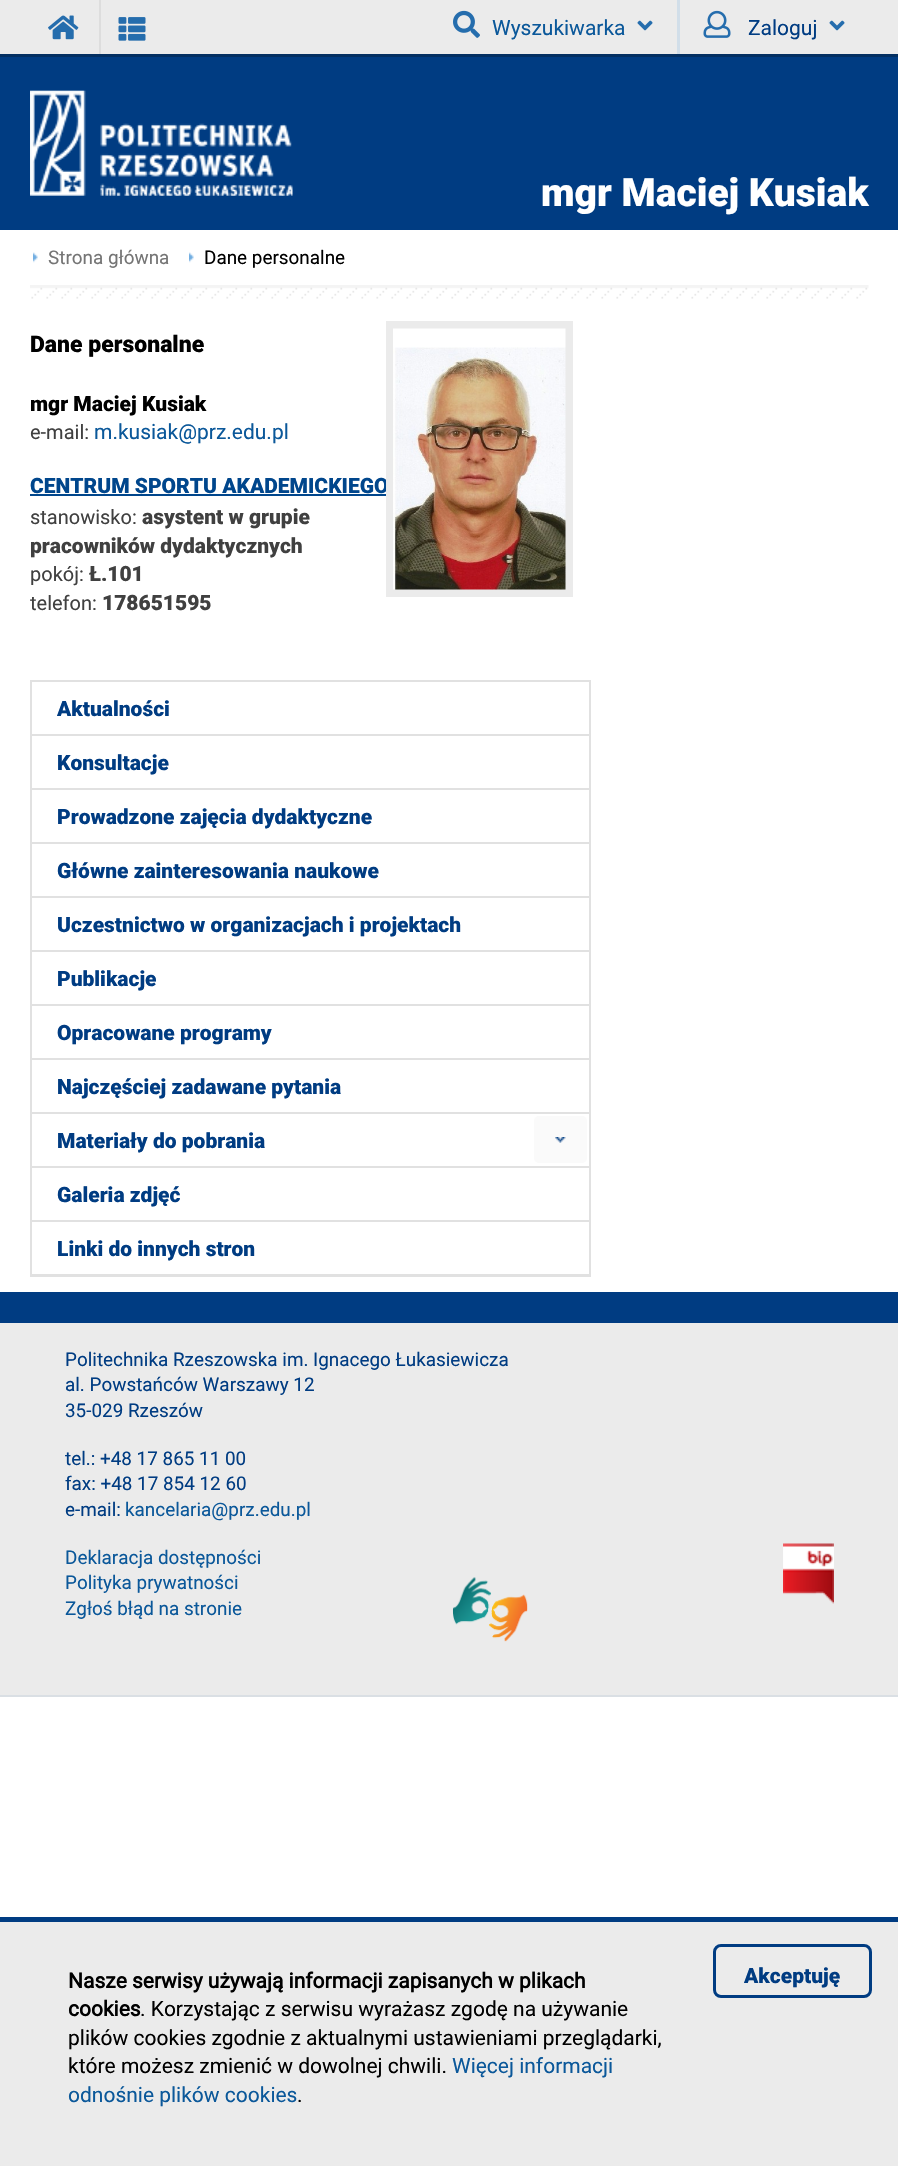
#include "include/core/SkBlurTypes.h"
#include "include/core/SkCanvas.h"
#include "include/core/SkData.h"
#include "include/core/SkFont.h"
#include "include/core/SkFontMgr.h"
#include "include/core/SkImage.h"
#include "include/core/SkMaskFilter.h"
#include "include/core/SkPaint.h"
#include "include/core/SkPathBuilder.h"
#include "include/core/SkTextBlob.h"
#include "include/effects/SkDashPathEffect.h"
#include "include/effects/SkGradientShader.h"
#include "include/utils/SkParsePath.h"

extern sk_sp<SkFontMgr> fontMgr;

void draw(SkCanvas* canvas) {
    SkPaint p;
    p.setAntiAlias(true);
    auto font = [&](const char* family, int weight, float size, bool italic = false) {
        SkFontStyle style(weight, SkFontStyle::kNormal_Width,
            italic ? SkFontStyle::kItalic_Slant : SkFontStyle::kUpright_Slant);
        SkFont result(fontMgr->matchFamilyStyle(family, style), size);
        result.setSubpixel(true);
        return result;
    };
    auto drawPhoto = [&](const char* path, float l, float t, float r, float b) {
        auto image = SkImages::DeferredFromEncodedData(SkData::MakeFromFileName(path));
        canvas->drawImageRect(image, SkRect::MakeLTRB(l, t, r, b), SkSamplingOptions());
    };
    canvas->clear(0xFFFFFFFF);
    {
        const struct { float l, t, r, b; SkColor color; } items[] = {
            {0, 57, 898, 230, 0xFF003C82},
            {0, 0, 898, 54, 0xFFEBEBEB},
            {0, 54, 898, 57, 0xFF032F61},
        };
        for (auto [l, t, r, b, color] : items) {
            p.setColor(color);
            canvas->drawRect(SkRect::MakeLTRB(l, t, r, b), p);
        }
    }
    drawPhoto("media/1.png", 48, 15, 79, 40);
    p.setColor(0xFFDDDDDD);
    canvas->drawRect(SkRect::MakeLTRB(99, 0, 101, 54), p);
    drawPhoto("media/2.png", 118, 17, 146, 41);
    p.setColor(0xFFD1DEE9);
    canvas->drawRect(SkRect::MakeLTRB(677, 0, 680, 54), p);
    drawPhoto("media/3.png", 453, 10, 480, 38);
    auto font1 = font("Roboto", 400, 21);
    p.setColor(0xFF0B589A);
    canvas->drawString("Wyszukiwarka", 492, 35, font1, p);
    drawPhoto("media/4.png", 637, 20, 653, 31);
    drawPhoto("media/5.png", 703, 10, 731, 38);
    p.setColor(0xFF003C82);
    canvas->drawString("Zaloguj", 748, 35, font1, p);
    drawPhoto("media/4.png", 829, 20, 845, 31);
    drawPhoto("media/6.png", 30, 90, 293, 196);
    auto font2 = font("Roboto", 900, 39);
    p.setColor(0xFFFFFFFF);
    canvas->drawString("mgr Maciej Kusiak", 541, 206, font2, p);
    drawPhoto("media/7.png", 33, 252, 38, 263);
    auto font3 = font("Roboto", 400, 18.9f);
    p.setColor(0xFF757575);
    canvas->drawString("Strona główna", 48, 264, font3, p);
    drawPhoto("media/7.png", 189, 252, 194, 263);
    p.setColor(0xFF000000);
    canvas->drawString("Dane personalne", 204, 264, font3, p);
    drawPhoto("media/8.png", 30, 285, 869, 299);
    auto font4 = font("Roboto", 900, 23);
    canvas->drawString("Dane personalne", 30, 352, font4, p);
    auto font5 = font("Roboto", 900, 21);
    canvas->drawString("mgr Maciej Kusiak", 30, 411, font5, p);
    auto font6 = font("Roboto", 400, 20);
    p.setColor(0xFF404040);
    canvas->drawString("e-mail:", 30, 439, font6, p);
    p.setColor(0xFF0B589A);
    canvas->drawString("m.kusiak@prz.edu.pl", 94, 439, font1, p);
    p.setColor(0xFF00468C);
    canvas->drawString("CENTRUM SPORTU AKADEMICKIEGO", 30, 493, font5, p);
    canvas->drawRect(SkRect::MakeLTRB(30, 494, 389, 496), p);
    p.setColor(0xFF404040);
    canvas->drawString("stanowisko:", 30, 524, font6, p);
    canvas->drawString("asystent w grupie", 142, 524, font5, p);
    canvas->drawString("pracowników dydaktycznych", 30, 553, font5, p);
    canvas->drawString("pokój:", 30, 581, font6, p);
    canvas->drawString("Ł.101", 89, 581, font5, p);
    canvas->drawString("telefon:", 30, 610, font6, p);
    canvas->drawString("178651595", 102, 610, font5, p);
    p.setStyle(SkPaint::kStroke_Style);
    p.setStrokeWidth(8);
    p.setColor(0xFFEBEBEB);
    canvas->drawRect(SkRect::MakeLTRB(390, 325, 569, 593), p);
    drawPhoto("media/9.png", 393, 328, 566, 590);
    p.setStrokeWidth(2);
    p.setColor(0xFFE1E1E1);
    canvas->drawRect(SkRect::MakeLTRB(31, 681, 590, 1276), p);
    p.setStyle(SkPaint::kFill_Style);
    canvas->drawRect(SkRect::MakeLTRB(32, 734, 590, 736), p);
    p.setColor(0xFF003C82);
    canvas->drawString("Aktualności", 57, 716, font5, p);
    p.setColor(0xFFE1E1E1);
    canvas->drawRect(SkRect::MakeLTRB(32, 788, 590, 790), p);
    p.setColor(0xFF003C82);
    canvas->drawString("Konsultacje", 57, 770, font5, p);
    p.setColor(0xFFE1E1E1);
    canvas->drawRect(SkRect::MakeLTRB(32, 842, 590, 844), p);
    p.setColor(0xFF003C82);
    canvas->drawString("Prowadzone zajęcia dydaktyczne", 57, 824, font5, p);
    p.setColor(0xFFE1E1E1);
    canvas->drawRect(SkRect::MakeLTRB(32, 896, 590, 898), p);
    p.setColor(0xFF003C82);
    canvas->drawString("Główne zainteresowania naukowe", 57, 878, font5, p);
    p.setColor(0xFFE1E1E1);
    canvas->drawRect(SkRect::MakeLTRB(32, 950, 590, 952), p);
    p.setColor(0xFF003C82);
    canvas->drawString("Uczestnictwo w organizacjach i projektach", 57, 932, font5, p);
    p.setColor(0xFFE1E1E1);
    canvas->drawRect(SkRect::MakeLTRB(32, 1004, 590, 1006), p);
    p.setColor(0xFF003C82);
    canvas->drawString("Publikacje", 57, 986, font5, p);
    p.setColor(0xFFE1E1E1);
    canvas->drawRect(SkRect::MakeLTRB(32, 1058, 590, 1060), p);
    p.setColor(0xFF003C82);
    canvas->drawString("Opracowane programy", 57, 1040, font5, p);
    p.setColor(0xFFE1E1E1);
    canvas->drawRect(SkRect::MakeLTRB(32, 1112, 590, 1114), p);
    p.setColor(0xFF003C82);
    canvas->drawString("Najczęściej zadawane pytania", 57, 1094, font5, p);
    p.setColor(0xFFE1E1E1);
    canvas->drawRect(SkRect::MakeLTRB(32, 1166, 590, 1168), p);
    p.setColor(0xFF003C82);
    canvas->drawString("Materiały do pobrania", 57, 1148, font5, p);
    p.setColor(0xFFFAFAFA);
    canvas->drawRoundRect(SkRect::MakeLTRB(534, 1116, 587, 1163), 5, 5, p);
    drawPhoto("media/10.png", 555, 1137, 566, 1143);
    p.setColor(0xFFE1E1E1);
    canvas->drawRect(SkRect::MakeLTRB(32, 1220, 590, 1222), p);
    p.setColor(0xFF003C82);
    canvas->drawString("Galeria zdjęć", 57, 1202, font5, p);
    p.setColor(0xFFE1E1E1);
    canvas->drawRect(SkRect::MakeLTRB(32, 1274, 590, 1275), p);
    p.setColor(0xFF003C82);
    canvas->drawString("Linki do innych stron", 57, 1256, font5, p);
    {
        const struct { float l, t, r, b; SkColor color; } items[] = {
            {0, 1292, 898, 1323, 0xFF003C82},
            {0, 1695, 898, 1697, 0xFFDADFE4},
            {0, 1323, 898, 1695, 0xFFEBEBEB},
        };
        for (auto [l, t, r, b, color] : items) {
            p.setColor(color);
            canvas->drawRect(SkRect::MakeLTRB(l, t, r, b), p);
        }
    }
    p.setColor(0xFF003C82);
    {
        const struct { const char* s; float x, y; } items[] = {
            {"Politechnika Rzeszowska im. Ignacego Łukasiewicza", 65, 1366},
            {"al. Powstańców Warszawy 12", 65, 1391},
            {"35-029 Rzeszów", 65, 1417},
            {"tel.: +48 17 865 11 00", 65, 1465},
            {"fax: +48 17 854 12 60", 65, 1490},
            {"e-mail:", 65, 1516},
        };
        for (auto [s, x, y] : items) {
            canvas->drawString(s, x, y, font3, p);
        }
    }
    p.setColor(0xFF0B589A);
    {
        const struct { const char* s; float x, y; } items[] = {
            {"kancelaria@prz.edu.pl", 125, 1516},
            {"Deklaracja dostępności", 65, 1564},
            {"Polityka prywatności", 65, 1589},
            {"Zgłoś błąd na stronie", 65, 1615},
        };
        for (auto [s, x, y] : items) {
            canvas->drawString(s, x, y, font3, p);
        }
    }
    drawPhoto("media/11.png", 452, 1577, 528, 1642);
    drawPhoto("media/12.png", 783, 1543, 834, 1604);
    p.setColor(0xFFEBEBEB);
    canvas->drawRect(SkRect::MakeLTRB(0, 1922, 898, 2166), p);
    p.setColor(0xFF003C82);
    canvas->drawRect(SkRect::MakeLTRB(0, 1917, 898, 1922), p);
    auto font7 = font("Roboto", 700, 21);
    p.setColor(0xFF000000);
    canvas->drawString("Nasze serwisy używają informacji zapisanych w plikach", 68, 1988, font7, p);
    canvas->drawString("cookies", 68, 2016, font7, p);
    {
        const struct { const char* s; float x, y; } items[] = {
            {". Korzystając z serwisu wyrażasz zgodę na używanie", 140, 2016},
            {"plików cookies zgodnie z aktualnymi ustawieniami przeglądarki,", 68, 2045},
            {"które możesz zmienić w dowolnej chwili.", 68, 2073},
        };
        for (auto [s, x, y] : items) {
            canvas->drawString(s, x, y, font1, p);
        }
    }
    p.setColor(0xFF0B589A);
    canvas->drawString("Więcej informacji", 452, 2073, font1, p);
    canvas->drawString("odnośnie plików cookies", 68, 2102, font1, p);
    p.setColor(0xFF000000);
    canvas->drawString(".", 297, 2102, font1, p);
    p.setStyle(SkPaint::kStroke_Style);
    p.setStrokeWidth(3);
    p.setColor(0xFF003C82);
    canvas->drawRoundRect(SkRect::MakeLTRB(714.5f, 1945.5f, 870.5f, 1996.5f), 6.5f, 6.5f, p);
    p.setStyle(SkPaint::kFill_Style);
    canvas->drawString("Akceptuję", 744, 1983, font5, p);
}
